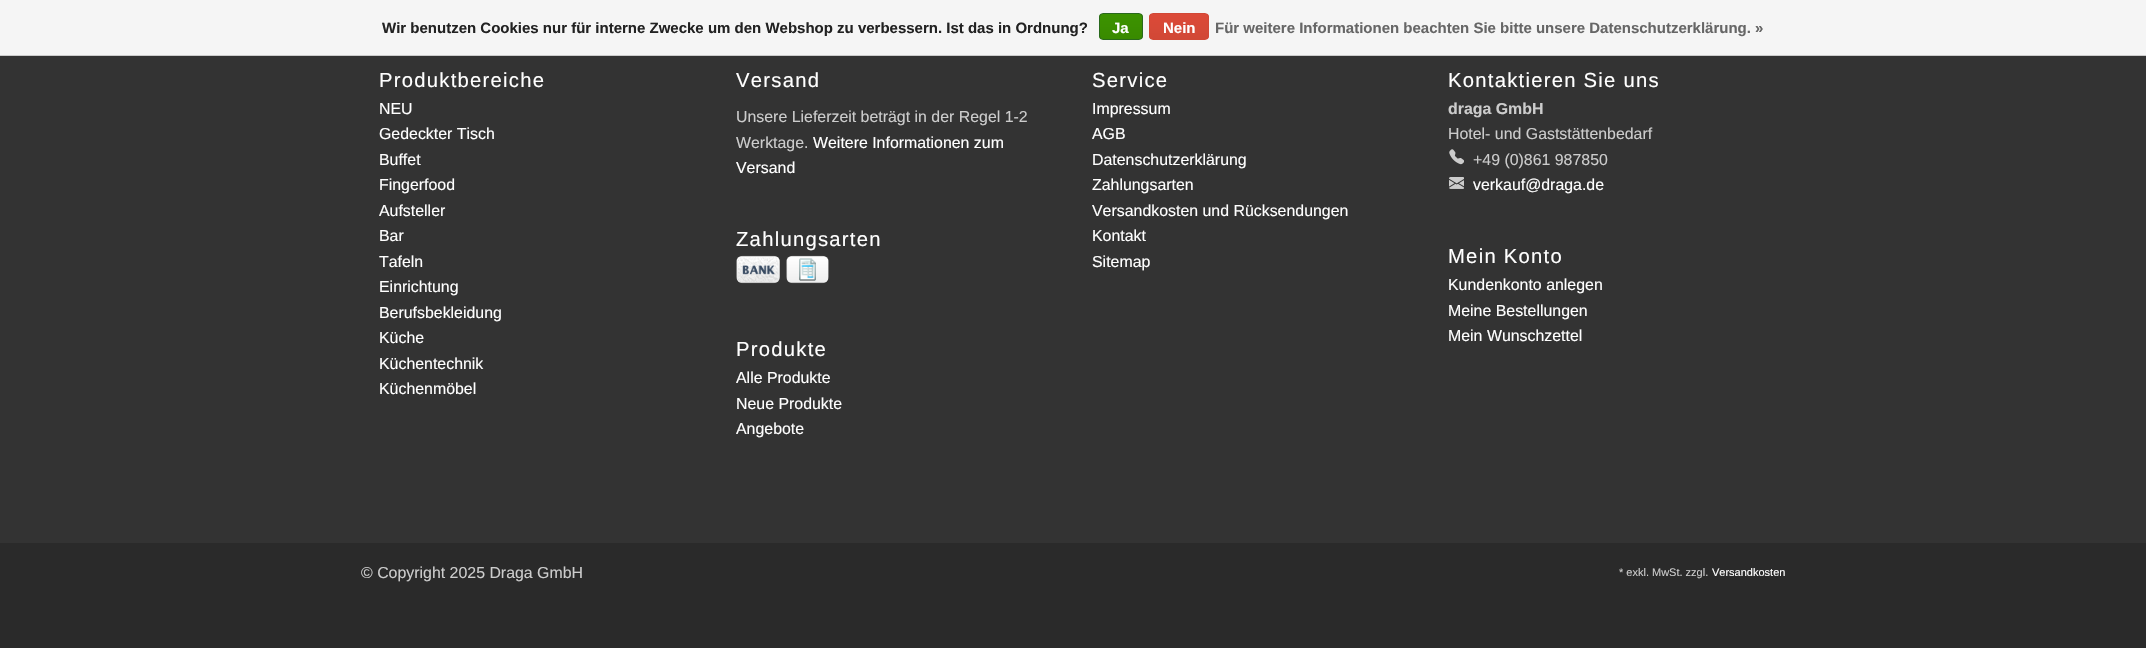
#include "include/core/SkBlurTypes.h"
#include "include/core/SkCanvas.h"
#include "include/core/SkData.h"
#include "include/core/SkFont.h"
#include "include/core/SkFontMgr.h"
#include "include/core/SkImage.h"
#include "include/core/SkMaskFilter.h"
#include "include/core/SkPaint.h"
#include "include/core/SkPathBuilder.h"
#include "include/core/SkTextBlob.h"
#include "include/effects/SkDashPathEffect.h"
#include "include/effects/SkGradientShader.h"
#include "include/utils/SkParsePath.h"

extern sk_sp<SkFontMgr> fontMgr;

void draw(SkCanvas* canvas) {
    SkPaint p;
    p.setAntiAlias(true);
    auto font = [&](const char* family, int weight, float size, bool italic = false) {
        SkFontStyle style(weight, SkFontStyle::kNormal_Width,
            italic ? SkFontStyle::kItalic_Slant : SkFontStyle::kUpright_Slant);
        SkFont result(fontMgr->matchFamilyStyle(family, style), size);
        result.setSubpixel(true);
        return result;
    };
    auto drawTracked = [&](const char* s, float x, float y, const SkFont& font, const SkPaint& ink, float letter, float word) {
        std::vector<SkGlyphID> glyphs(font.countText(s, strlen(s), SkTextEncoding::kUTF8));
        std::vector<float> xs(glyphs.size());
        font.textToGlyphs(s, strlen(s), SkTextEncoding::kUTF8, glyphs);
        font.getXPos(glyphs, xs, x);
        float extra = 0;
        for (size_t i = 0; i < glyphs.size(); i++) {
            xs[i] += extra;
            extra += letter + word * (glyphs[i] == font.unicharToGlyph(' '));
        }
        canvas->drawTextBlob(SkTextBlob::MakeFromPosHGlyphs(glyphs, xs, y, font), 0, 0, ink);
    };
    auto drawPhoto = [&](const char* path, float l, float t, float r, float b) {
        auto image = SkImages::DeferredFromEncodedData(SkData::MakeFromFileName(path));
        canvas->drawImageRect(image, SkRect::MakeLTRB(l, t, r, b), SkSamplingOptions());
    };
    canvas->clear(0xFF333333);
    p.setColor(0xFFF5F5F5);
    canvas->drawRect(SkRect::MakeLTRB(0, 0, 2146, 55), p);
    p.setColor(0xFFCCCCCC);
    canvas->drawRect(SkRect::MakeLTRB(0, 55, 2146, 56), p);
    auto font1 = font("Liberation Sans", 700, 15);
    p.setColor(0xFF222222);
    canvas->drawString("Wir benutzen Cookies nur für interne Zwecke um den Webshop zu verbessern. Ist das in Ordnung?", 382, 33, font1, p);
    canvas->save();
    canvas->clipPath(SkPathBuilder().moveTo(1103, 13).lineTo(1139, 13).cubicTo(1141, 13, 1143, 15, 1143, 17).lineTo(1143, 36).cubicTo(1143, 38, 1141, 40, 1139, 40).lineTo(1103, 40).cubicTo(1101, 40, 1099, 38, 1099, 36).lineTo(1099, 17).cubicTo(1099, 15, 1101, 13, 1103, 13).close().detach(), true);
    {
        const SkColor colors[] = {0xFF3C9300, 0xFF398A00};
        const float stops[] = {0, 1};
        const SkPoint ends[] = {{1121, 14}, {1121, 39}};
        p.setShader(SkGradientShader::MakeLinear(ends, colors, stops, 2, SkTileMode::kClamp));
        p.setAlpha(255);
    }
    canvas->drawRect(SkRect::MakeLTRB(1099, 14, 1143, 39), p);
    canvas->restore();
    p.setStyle(SkPaint::kStroke_Style);
    p.setStrokeWidth(1);
    p.setShader(nullptr);
    p.setColor(0xFF29691D);
    canvas->drawRoundRect(SkRect::MakeLTRB(1099.5f, 13.5f, 1142.5f, 39.5f), 3.5f, 3.5f, p);
    p.setStyle(SkPaint::kFill_Style);
    p.setColor(0xFFFFFFFF);
    canvas->drawString("Ja", 1112, 33, font1, p);
    canvas->save();
    canvas->clipPath(SkPathBuilder().moveTo(1153, 13).lineTo(1205, 13).cubicTo(1207, 13, 1209, 15, 1209, 17).lineTo(1209, 36).cubicTo(1209, 38, 1207, 40, 1205, 40).lineTo(1153, 40).cubicTo(1151, 40, 1149, 38, 1149, 36).lineTo(1149, 17).cubicTo(1149, 15, 1151, 13, 1153, 13).close().detach(), true);
    {
        const SkColor colors[] = {0xFFDC4A38, 0xFFD14836};
        const float stops[] = {0, 1};
        const SkPoint ends[] = {{1179, 14}, {1179, 39}};
        p.setShader(SkGradientShader::MakeLinear(ends, colors, stops, 2, SkTileMode::kClamp));
        p.setAlpha(255);
    }
    canvas->drawRect(SkRect::MakeLTRB(1149, 14, 1209, 39), p);
    canvas->restore();
    p.setStyle(SkPaint::kStroke_Style);
    p.setShader(nullptr);
    p.setColor(0xFFD14836);
    canvas->drawRoundRect(SkRect::MakeLTRB(1149.5f, 13.5f, 1208.5f, 39.5f), 3.5f, 3.5f, p);
    p.setStyle(SkPaint::kFill_Style);
    p.setColor(0xFFFFFFFF);
    canvas->drawString("Nein", 1163, 33, font1, p);
    p.setColor(0xFF666666);
    canvas->drawString("Für weitere Informationen beachten Sie bitte unsere Datenschutzerklärung. »", 1215, 33, font1, p);
    auto font2 = font("Liberation Sans", 400, 20.25f);
    p.setColor(0xFFFFFFFF);
    drawTracked("Produktbereiche", 379, 87, font2, p, 1.25f, 0);
    auto font3 = font("Liberation Sans", 400, 15.9f);
    {
        const struct { const char* s; float x, y; } items[] = {
            {"NEU", 379, 114},
            {"Gedeckter Tisch", 379, 139},
            {"Buffet", 379, 165},
            {"Fingerfood", 379, 190},
            {"Aufsteller", 379, 216},
            {"Bar", 379, 241},
            {"Tafeln", 379, 267},
            {"Einrichtung", 379, 292},
            {"Berufsbekleidung", 379, 318},
            {"Küche", 379, 343},
            {"Küchentechnik", 379, 369},
            {"Küchenmöbel", 379, 394},
        };
        for (auto [s, x, y] : items) {
            canvas->drawString(s, x, y, font3, p);
        }
    }
    drawTracked("Versand", 736, 87, font2, p, 1.25f, 0);
    p.setColor(0xFFCCCCCC);
    canvas->drawString("Unsere Lieferzeit beträgt in der Regel 1-2", 736, 122, font3, p);
    canvas->drawString("Werktage.", 736, 148, font3, p);
    p.setColor(0xFFFFFFFF);
    canvas->drawString("Weitere Informationen zum", 813, 148, font3, p);
    canvas->drawString("Versand", 736, 173, font3, p);
    drawTracked("Zahlungsarten", 736, 246, font2, p, 1.25f, 0);
    drawPhoto("media/1.png", 736, 255, 780, 284);
    drawPhoto("media/2.png", 786, 255, 829, 284);
    drawTracked("Produkte", 736, 356, font2, p, 1.25f, 0);
    {
        const struct { const char* s; float x, y; } items[] = {
            {"Alle Produkte", 736, 383},
            {"Neue Produkte", 736, 409},
            {"Angebote", 736, 434},
        };
        for (auto [s, x, y] : items) {
            canvas->drawString(s, x, y, font3, p);
        }
    }
    drawTracked("Service", 1092, 87, font2, p, 1.25f, 0);
    {
        const struct { const char* s; float x, y; } items[] = {
            {"Impressum", 1092, 114},
            {"AGB", 1092, 139},
            {"Datenschutzerklärung", 1092, 165},
            {"Zahlungsarten", 1092, 190},
            {"Versandkosten und Rücksendungen", 1092, 216},
            {"Kontakt", 1092, 241},
            {"Sitemap", 1092, 267},
        };
        for (auto [s, x, y] : items) {
            canvas->drawString(s, x, y, font3, p);
        }
    }
    drawTracked("Kontaktieren Sie uns", 1448, 87, font2, p, 1.25f, 0);
    auto font4 = font("Liberation Sans", 700, 15.9f);
    p.setColor(0xFFCCCCCC);
    canvas->drawString("draga GmbH", 1448, 114, font4, p);
    canvas->drawString("Hotel- und Gaststättenbedarf", 1448, 139, font3, p);
    drawPhoto("media/3.png", 1449, 149, 1464, 165);
    canvas->drawString("+49 (0)861 987850", 1473, 165, font3, p);
    drawPhoto("media/4.png", 1449, 177, 1464, 189);
    p.setColor(0xFFFFFFFF);
    canvas->drawString("verkauf@draga.de", 1473, 190, font3, p);
    drawTracked("Mein Konto", 1448, 263, font2, p, 1.25f, 0);
    {
        const struct { const char* s; float x, y; } items[] = {
            {"Kundenkonto anlegen", 1448, 290},
            {"Meine Bestellungen", 1448, 316},
            {"Mein Wunschzettel", 1448, 341},
        };
        for (auto [s, x, y] : items) {
            canvas->drawString(s, x, y, font3, p);
        }
    }
    p.setColor(0xFF2A2A2A);
    canvas->drawRect(SkRect::MakeLTRB(0, 543, 2146, 648), p);
    p.setColor(0xFFCCCCCC);
    canvas->drawString("© Copyright 2025 Draga GmbH", 361, 578, font3, p);
    auto font5 = font("Liberation Sans", 400, 11);
    canvas->drawString("* exkl. MwSt. zzgl.", 1619, 576, font5, p);
    p.setColor(0xFFFFFFFF);
    canvas->drawString("Versandkosten", 1712, 576, font5, p);
}
